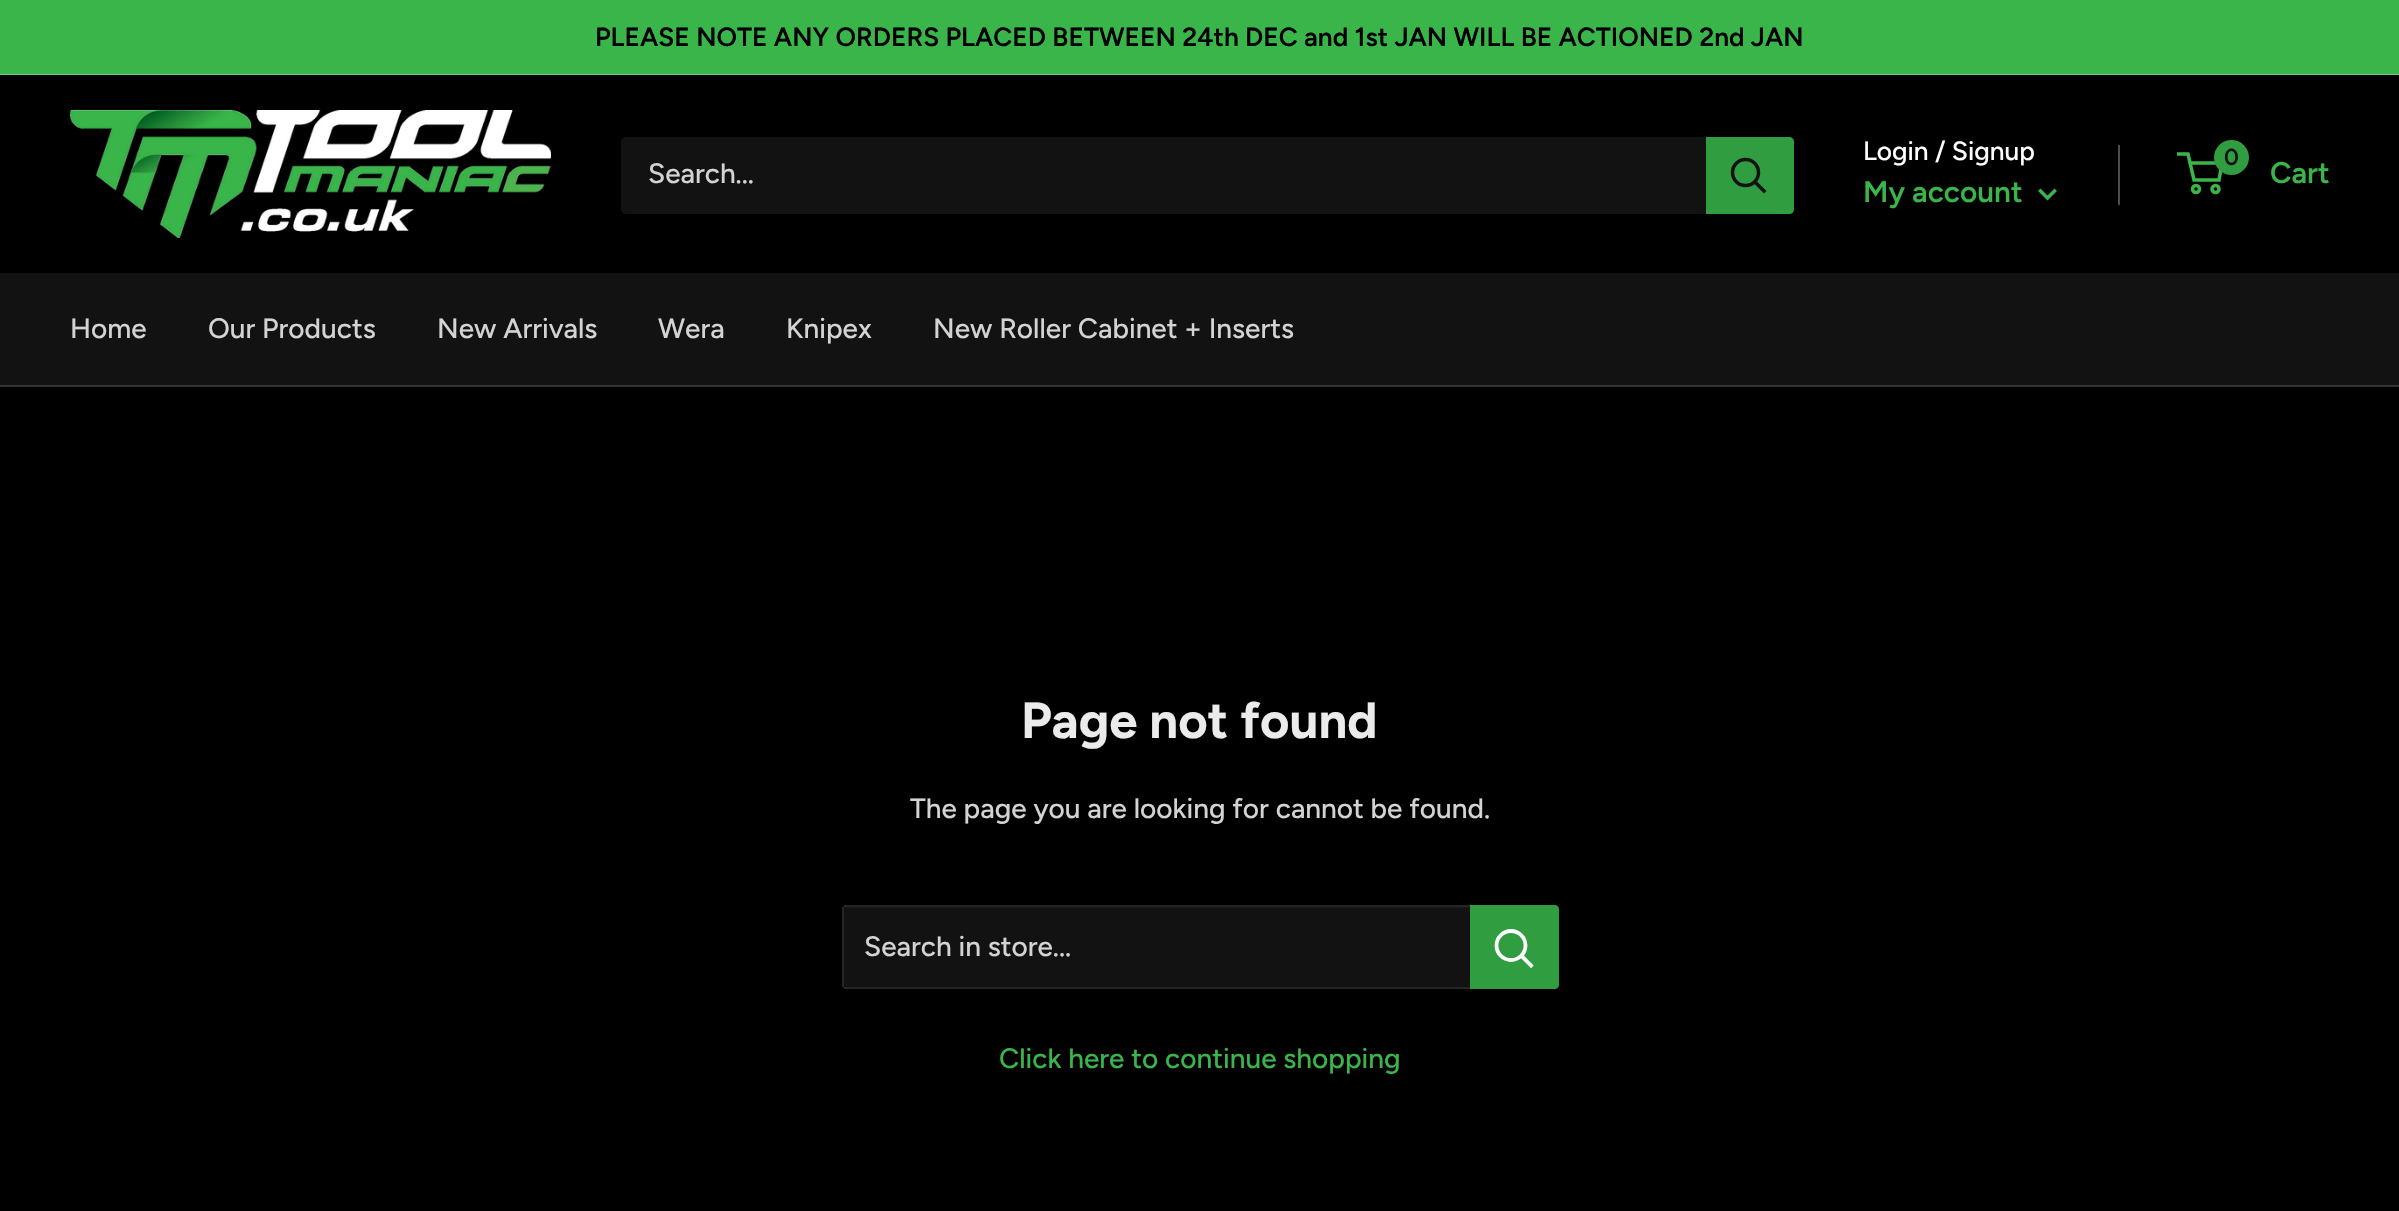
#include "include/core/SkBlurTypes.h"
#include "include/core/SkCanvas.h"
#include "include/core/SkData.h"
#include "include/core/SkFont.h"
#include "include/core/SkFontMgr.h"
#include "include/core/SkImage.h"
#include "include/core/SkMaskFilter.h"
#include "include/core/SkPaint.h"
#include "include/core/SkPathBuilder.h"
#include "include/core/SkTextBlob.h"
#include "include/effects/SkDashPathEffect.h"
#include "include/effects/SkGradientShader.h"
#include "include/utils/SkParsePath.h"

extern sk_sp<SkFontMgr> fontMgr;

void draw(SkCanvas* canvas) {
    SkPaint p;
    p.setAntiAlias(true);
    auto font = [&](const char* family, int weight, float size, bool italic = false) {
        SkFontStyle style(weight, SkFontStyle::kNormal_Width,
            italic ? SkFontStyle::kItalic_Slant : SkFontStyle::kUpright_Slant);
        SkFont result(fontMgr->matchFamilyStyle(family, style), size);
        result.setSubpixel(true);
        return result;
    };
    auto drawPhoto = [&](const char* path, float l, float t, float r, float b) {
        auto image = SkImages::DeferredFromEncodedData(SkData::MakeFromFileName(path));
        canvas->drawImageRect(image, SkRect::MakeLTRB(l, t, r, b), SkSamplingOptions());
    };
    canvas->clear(0xFF000000);
    p.setColor(0xFF39B54A);
    canvas->drawRect(SkRect::MakeLTRB(0, 0, 2399, 74), p);
    p.setColor(0xFF74CB80);
    canvas->drawRect(SkRect::MakeLTRB(0, 74, 2399, 75), p);
    auto font1 = font("Figtree", 600, 26.25f);
    p.setColor(0xFF000000);
    canvas->drawString("PLEASE NOTE ANY ORDERS PLACED BETWEEN 24th DEC and 1st JAN WILL BE ACTIONED 2nd JAN", 595, 46, font1, p);
    drawPhoto("media/1.png", 70, 110, 551, 238);
    p.setColor(0xFF121212);
    canvas->drawRoundRect(SkRect::MakeLTRB(621, 137, 1794, 214), 5, 5, p);
    auto font2 = font("Figtree", 500, 28);
    p.setColor(0xFFD3D3D3);
    canvas->drawString("Search...", 648, 183, font2, p);
    p.setColor(0xFF2F9D40);
    canvas->drawPath(SkPathBuilder().moveTo(1706, 137).lineTo(1789, 137).cubicTo(1792, 137, 1794, 139, 1794, 142).lineTo(1794, 209).cubicTo(1794, 212, 1792, 214, 1789, 214).lineTo(1706, 214).close().detach(), p);
    p.setStyle(SkPaint::kStroke_Style);
    p.setStrokeWidth(3.5f);
    p.setStrokeCap(SkPaint::kSquare_Cap);
    p.setColor(0xFF121212);
    canvas->drawPath(SkPathBuilder().moveTo(1764, 191).lineTo(1755, 182).detach(), p);
    p.setStrokeCap(SkPaint::kButt_Cap);
    canvas->drawCircle(1745.5f, 172.5f, 13, p);
    auto font3 = font("Figtree", 500, 26.25f);
    p.setStyle(SkPaint::kFill_Style);
    p.setColor(0xFFFFFFFF);
    canvas->drawString("Login / Signup", 1863, 160, font3, p);
    p.setColor(0xFF4D4D4D);
    canvas->drawRect(SkRect::MakeLTRB(2118, 145, 2120, 205), p);
    auto font4 = font("Figtree", 600, 29.75f);
    p.setColor(0xFF39B54A);
    canvas->drawString("My account", 1863, 202, font4, p);
    p.setStyle(SkPaint::kStroke_Style);
    p.setStrokeCap(SkPaint::kSquare_Cap);
    canvas->drawPath(SkPathBuilder().moveTo(2054.5f, 191).lineTo(2047.5f, 198).lineTo(2040.5f, 191).detach(), p);
    p.setStrokeCap(SkPaint::kButt_Cap);
    canvas->drawCircle(2196, 189, 3.5f, p);
    canvas->drawCircle(2215.5f, 189, 3.5f, p);
    canvas->drawPath(SkPathBuilder().moveTo(2190, 163).lineTo(2222, 163).lineTo(2219, 180).lineTo(2194, 180).lineTo(2188, 154).lineTo(2177, 154).detach(), p);
    p.setStyle(SkPaint::kFill_Style);
    p.setColor(0xFF2F9D40);
    canvas->drawCircle(2231.5f, 157.5f, 17.5f, p);
    auto font5 = font("Figtree", 600, 23);
    p.setColor(0xFF121212);
    canvas->drawString("0", 2224, 165, font5, p);
    p.setColor(0xFF39B54A);
    canvas->drawString("Cart", 2270, 183, font4, p);
    p.setColor(0xFF121212);
    canvas->drawRect(SkRect::MakeLTRB(0, 273, 2399, 385), p);
    p.setColor(0xFF323232);
    canvas->drawRect(SkRect::MakeLTRB(0, 385, 2399, 387), p);
    p.setColor(0xFFD3D3D3);
    {
        const struct { const char* s; float x, y; } items[] = {
            {"Home", 70, 338},
            {"Our Products", 208, 338},
            {"New Arrivals", 437, 338},
            {"Wera", 658, 338},
            {"Knipex", 786, 338},
            {"New Roller Cabinet + Inserts", 933, 338},
        };
        for (auto [s, x, y] : items) {
            canvas->drawString(s, x, y, font2, p);
        }
    }
    auto font6 = font("Figtree", 700, 50.75f);
    p.setColor(0xFFEBEBEB);
    canvas->drawString("Page not found", 1021, 738, font6, p);
    p.setColor(0xFFD3D3D3);
    canvas->drawString("The page you are looking for cannot be found.", 910, 818, font2, p);
    p.setColor(0xFF121212);
    canvas->drawPath(SkPathBuilder().moveTo(846, 905).lineTo(1470, 905).lineTo(1470, 989).lineTo(846, 989).cubicTo(844, 989, 842, 987, 842, 985).lineTo(842, 909).cubicTo(842, 907, 844, 905, 846, 905).close().detach(), p);
    p.setColor(0xFF1A1A1A);
    canvas->drawPath(SkPathBuilder().moveTo(845, 908).lineTo(1470, 908).lineTo(1470, 907).lineTo(846, 907).lineTo(844, 908).close().detach(), p);
    {
        const struct { float l, t, r, b; SkColor color; } items[] = {
            {844, 905, 1470, 907, 0xFF252525},
            {844, 987, 1470, 989, 0xFF252525},
            {842, 907, 844, 987, 0xFF252525},
        };
        for (auto [l, t, r, b, color] : items) {
            p.setColor(color);
            canvas->drawRect(SkRect::MakeLTRB(l, t, r, b), p);
        }
    }
    p.setColor(0xFFD3D3D3);
    canvas->drawString("Search in store...", 864, 956, font2, p);
    p.setColor(0xFF2F9D40);
    canvas->drawPath(SkPathBuilder().moveTo(1470, 905).lineTo(1555, 905).cubicTo(1557, 905, 1559, 907, 1559, 909).lineTo(1559, 985).cubicTo(1559, 987, 1557, 989, 1555, 989).lineTo(1470, 989).close().detach(), p);
    p.setStyle(SkPaint::kStroke_Style);
    p.setStrokeWidth(3.8f);
    p.setStrokeCap(SkPaint::kSquare_Cap);
    p.setColor(0xFFFFFFFF);
    canvas->drawPath(SkPathBuilder().moveTo(1531, 965.5f).lineTo(1521.5f, 956).detach(), p);
    p.setStrokeCap(SkPaint::kButt_Cap);
    canvas->drawCircle(1511, 945.5f, 14.5f, p);
    p.setStyle(SkPaint::kFill_Style);
    p.setColor(0xFF39B54A);
    canvas->drawString("Click here to continue shopping", 999, 1068, font2, p);
}
